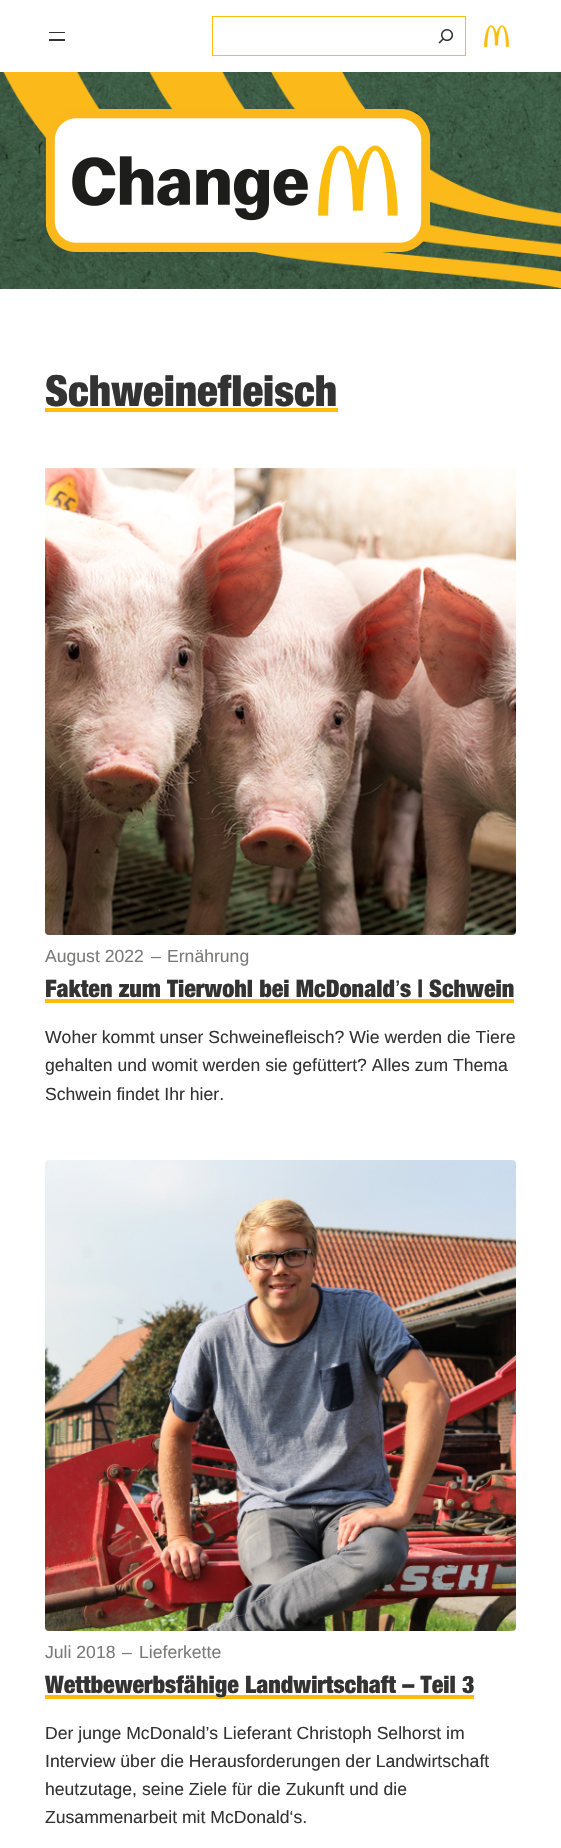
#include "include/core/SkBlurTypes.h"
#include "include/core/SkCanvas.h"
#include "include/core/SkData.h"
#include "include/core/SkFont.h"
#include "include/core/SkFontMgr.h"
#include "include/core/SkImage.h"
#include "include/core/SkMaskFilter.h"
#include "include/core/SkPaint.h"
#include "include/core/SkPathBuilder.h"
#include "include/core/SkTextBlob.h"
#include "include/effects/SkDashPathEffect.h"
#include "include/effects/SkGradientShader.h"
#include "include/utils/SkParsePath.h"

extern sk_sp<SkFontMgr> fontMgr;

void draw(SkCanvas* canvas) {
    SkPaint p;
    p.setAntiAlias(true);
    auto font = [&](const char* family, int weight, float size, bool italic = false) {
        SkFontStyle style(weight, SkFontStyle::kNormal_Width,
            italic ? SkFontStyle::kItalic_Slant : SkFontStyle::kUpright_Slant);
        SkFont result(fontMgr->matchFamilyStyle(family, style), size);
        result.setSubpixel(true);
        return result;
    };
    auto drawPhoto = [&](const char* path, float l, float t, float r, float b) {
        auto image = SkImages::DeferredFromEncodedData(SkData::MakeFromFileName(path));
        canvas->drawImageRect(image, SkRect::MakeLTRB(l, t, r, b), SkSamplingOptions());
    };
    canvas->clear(0xFFFFFFFF);
    p.setColor(0xFF333333);
    canvas->drawRect(SkRect::MakeLTRB(49, 32, 65, 33), p);
    canvas->drawRect(SkRect::MakeLTRB(49, 39, 65, 41), p);
    p.setStyle(SkPaint::kStroke_Style);
    p.setStrokeWidth(1);
    p.setColor(0xFFFEBC0D);
    canvas->drawRect(SkRect::MakeLTRB(212.5f, 16.5f, 465.5f, 55.5f), p);
    drawPhoto("media/1.png", 438, 29, 454, 44);
    drawPhoto("media/2.png", 484, 25, 510, 47);
    drawPhoto("media/3.png", 0, 72, 561, 289);
    drawPhoto("media/4.png", 45, 109, 431, 252);
    auto font1 = font("Helvetica Neue", 900, 43);
    p.setStyle(SkPaint::kFill_Style);
    p.setColor(0xFF333333);
    canvas->drawString("Schweinefleisch", 45, 406, font1, p);
    p.setColor(0xFFFEBC0D);
    canvas->drawRect(SkRect::MakeLTRB(45, 408, 338, 412), p);
    drawPhoto("media/5.png", 45, 467, 516, 935);
    auto font2 = font("Liberation Sans", 400, 17.6f);
    p.setColor(0xFF7A7A79);
    {
        const struct { const char* s; float x, y; } items[] = {
            {"August 2022", 45, 962},
            {"–", 151, 962},
            {"Ernährung", 167, 962},
        };
        for (auto [s, x, y] : items) {
            canvas->drawString(s, x, y, font2, p);
        }
    }
    auto font3 = font("Helvetica Neue", 900, 24.1f);
    p.setColor(0xFF333333);
    canvas->drawString("Fakten zum Tierwohl bei McDonald", 45, 997, font3, p);
    p.setColor(0xFFFEBC0D);
    canvas->drawRect(SkRect::MakeLTRB(45, 999, 514, 1003), p);
    auto font4 = font("Liberation Sans", 400, 24.1f);
    p.setColor(0xFF333333);
    canvas->drawString("’", 395, 997, font4, p);
    canvas->drawString("s | Schwein", 400, 997, font3, p);
    {
        const struct { const char* s; float x, y; } items[] = {
            {"Woher kommt unser Schweinefleisch? Wie werden die Tiere", 45, 1043},
            {"gehalten und womit werden sie gefüttert? Alles zum Thema", 45, 1071},
            {"Schwein findet Ihr hier.", 45, 1100},
        };
        for (auto [s, x, y] : items) {
            canvas->drawString(s, x, y, font2, p);
        }
    }
    drawPhoto("media/6.png", 45, 1160, 516, 1631);
    p.setColor(0xFF7A7A79);
    {
        const struct { const char* s; float x, y; } items[] = {
            {"Juli 2018", 45, 1658},
            {"–", 122, 1658},
            {"Lieferkette", 139, 1658},
        };
        for (auto [s, x, y] : items) {
            canvas->drawString(s, x, y, font2, p);
        }
    }
    p.setColor(0xFFFEBC0D);
    canvas->drawRect(SkRect::MakeLTRB(45, 1695, 474, 1699), p);
    p.setColor(0xFF333333);
    canvas->drawString("Wettbewerbsfähige Landwirtschaft – Teil 3", 45, 1693, font3, p);
    {
        const struct { const char* s; float x, y; } items[] = {
            {"Der junge McDonald’s Lieferant Christoph Selhorst im", 45, 1739},
            {"Interview über die Herausforderungen der Landwirtschaft", 45, 1767},
            {"heutzutage, seine Ziele für die Zukunft und die", 45, 1795},
            {"Zusammenarbeit mit McDonald‘s.", 45, 1823},
        };
        for (auto [s, x, y] : items) {
            canvas->drawString(s, x, y, font2, p);
        }
    }
}
